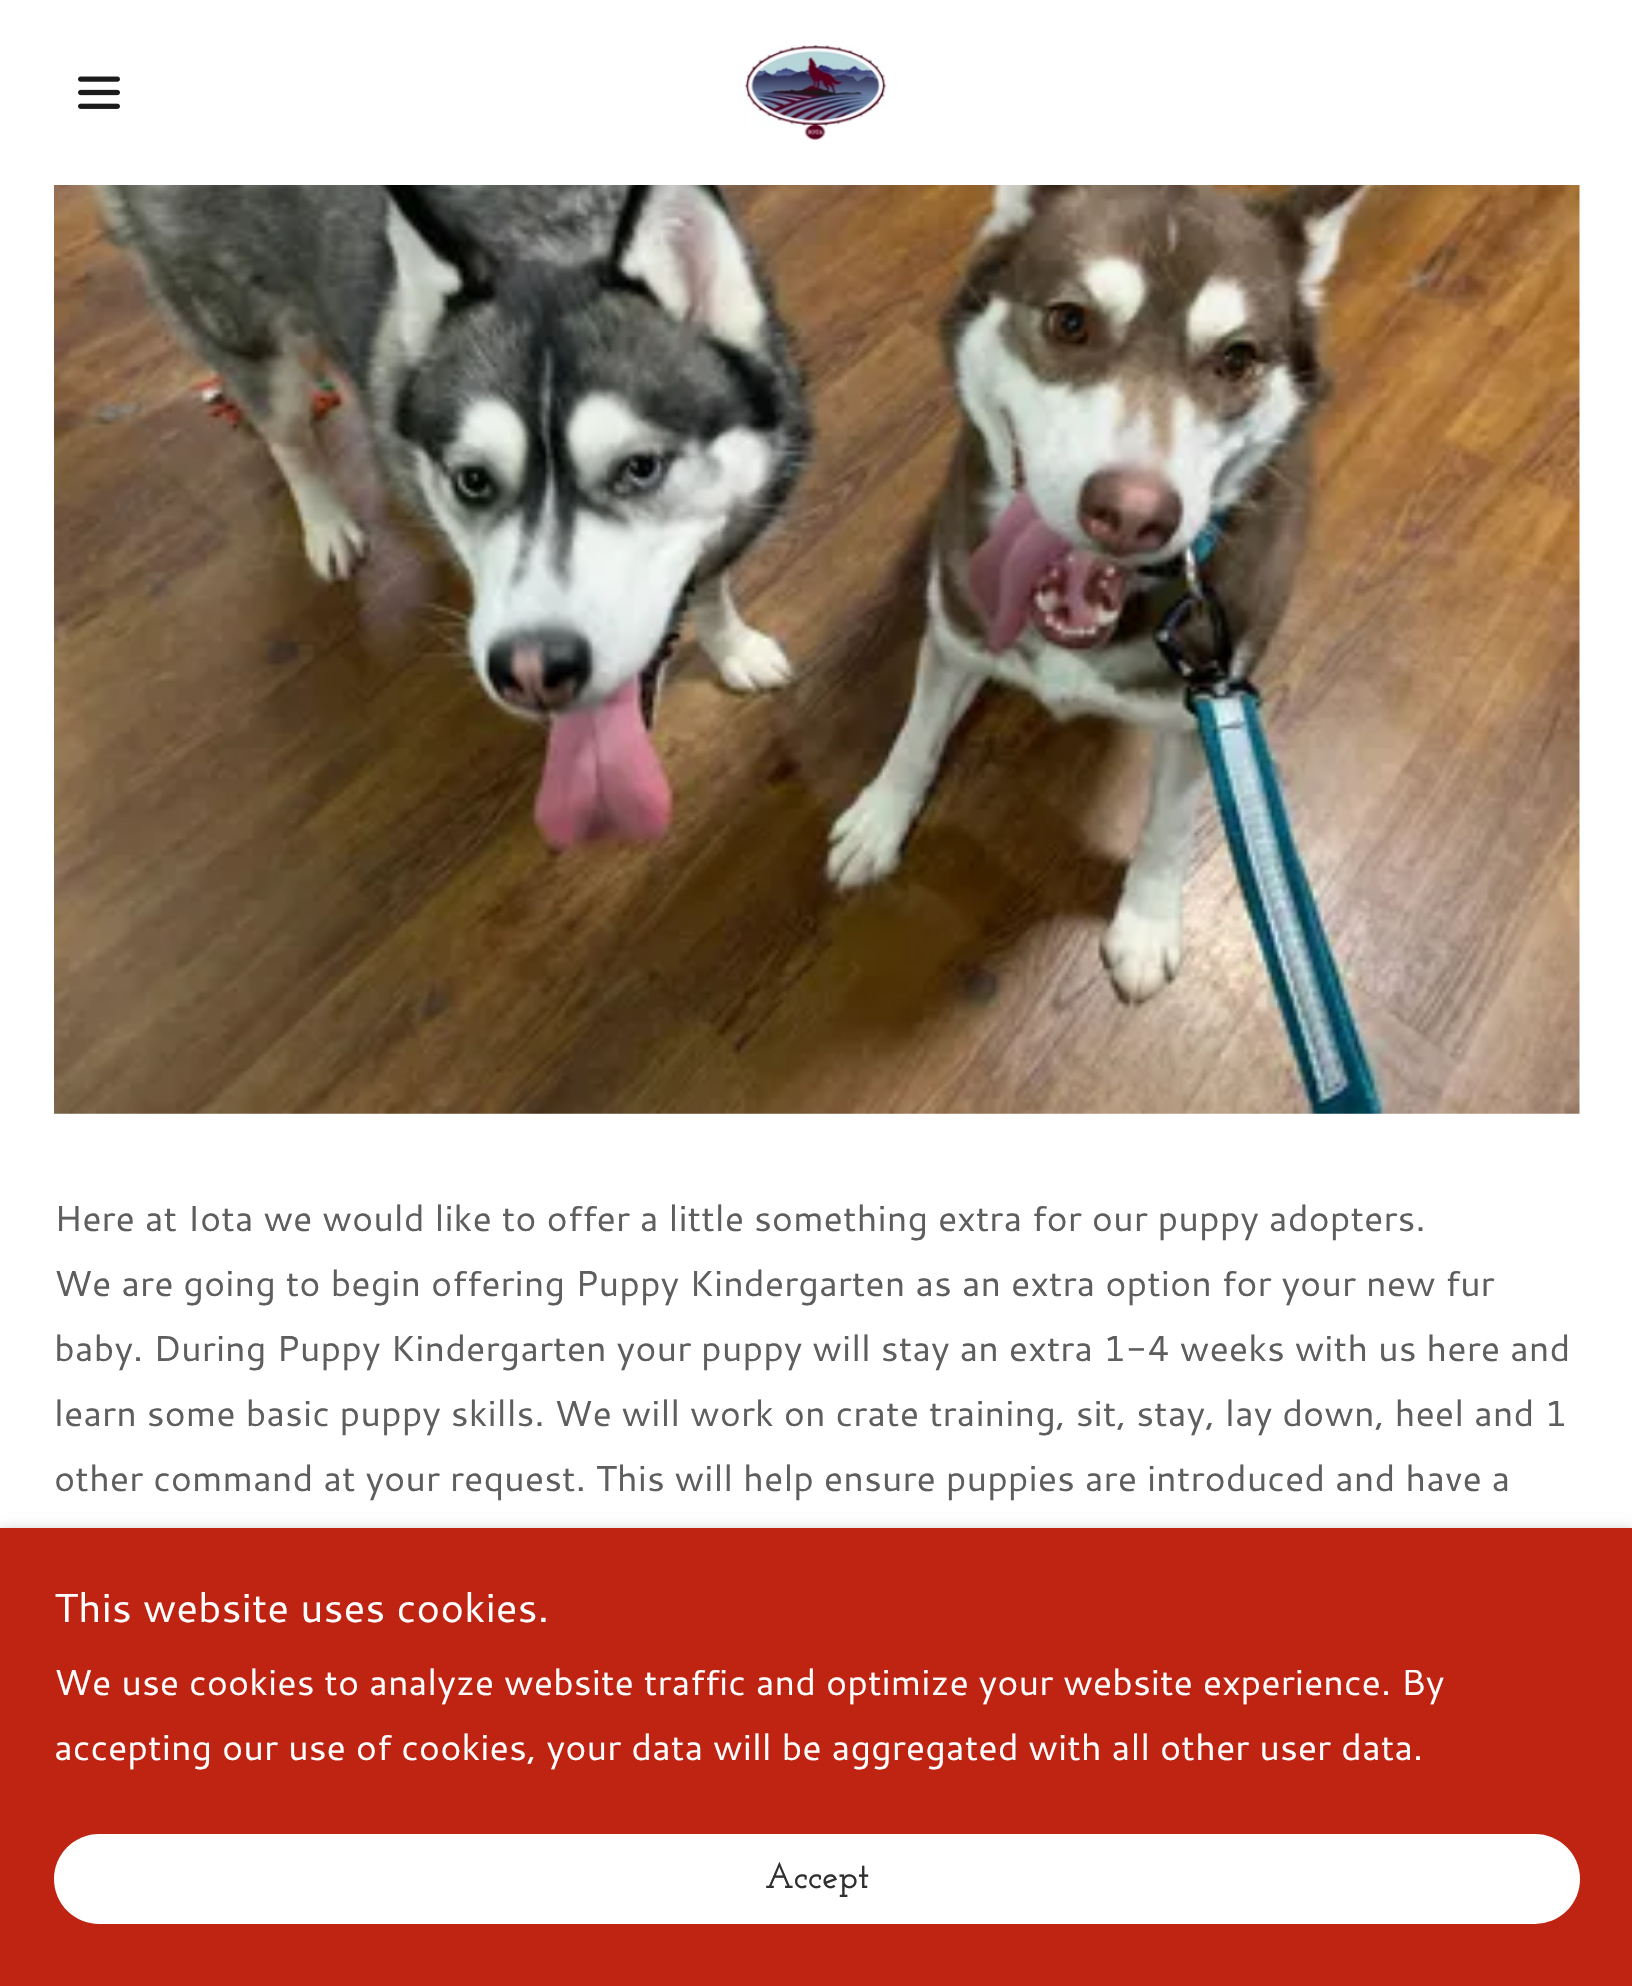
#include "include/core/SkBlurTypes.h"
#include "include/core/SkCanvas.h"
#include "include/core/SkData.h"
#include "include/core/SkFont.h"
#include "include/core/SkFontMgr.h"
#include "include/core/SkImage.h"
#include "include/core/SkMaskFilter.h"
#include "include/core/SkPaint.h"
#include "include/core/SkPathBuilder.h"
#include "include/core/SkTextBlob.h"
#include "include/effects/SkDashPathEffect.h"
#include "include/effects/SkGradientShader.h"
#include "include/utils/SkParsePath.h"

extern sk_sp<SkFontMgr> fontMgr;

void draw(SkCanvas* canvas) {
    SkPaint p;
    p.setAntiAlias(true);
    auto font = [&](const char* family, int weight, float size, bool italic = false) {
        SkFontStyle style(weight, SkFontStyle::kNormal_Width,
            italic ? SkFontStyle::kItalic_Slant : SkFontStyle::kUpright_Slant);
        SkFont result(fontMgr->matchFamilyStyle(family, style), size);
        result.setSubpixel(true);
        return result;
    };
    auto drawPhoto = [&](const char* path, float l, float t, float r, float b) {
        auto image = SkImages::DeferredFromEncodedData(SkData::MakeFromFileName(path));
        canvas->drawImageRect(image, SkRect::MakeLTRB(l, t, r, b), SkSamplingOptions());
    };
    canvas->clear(0xFFFFFFFF);
    drawPhoto("media/1.png", 78, 76, 120, 109);
    drawPhoto("media/2.png", 744, 45, 887, 141);
    drawPhoto("media/3.png", 54, 185, 1580, 1114);
    auto font1 = font("Cantarell", 400, 36);
    p.setColor(0xFF5E5E5E);
    {
        const struct { const char* s; float x, y; } items[] = {
            {"Here at Iota we would like to offer a little something extra for our puppy adopters.", 54, 1231},
            {"We are going to begin offering Puppy Kindergarten as an extra option for your new fur", 54, 1296},
            {"baby. During Puppy Kindergarten your puppy will stay an extra 1-4 weeks with us here and", 54, 1361},
            {"learn some basic puppy skills. We will work on crate training, sit, stay, lay down, heel and 1", 54, 1426},
            {"other command at your request. This will help ensure puppies are introduced and have a", 54, 1491},
        };
        for (auto [s, x, y] : items) {
            canvas->drawString(s, x, y, font1, p);
        }
    }
    p.setColor(0x4D000000);
    p.setMaskFilter(SkMaskFilter::MakeBlur(kNormal_SkBlurStyle, 7));
    canvas->drawRect(SkRect::MakeLTRB(0, 1532, 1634, 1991), p);
    p.setMaskFilter(nullptr);
    p.setColor(0xFFBF2311);
    canvas->drawRect(SkRect::MakeLTRB(0, 1528, 1632, 1986), p);
    auto font2 = font("Cantarell", 400, 40.5f);
    p.setColor(0xFFFFFFFF);
    canvas->drawString("This website uses cookies.", 54, 1622, font2, p);
    canvas->drawString("We use cookies to analyze website traffic and optimize your website experience. By", 54, 1695, font1, p);
    canvas->drawString("accepting our use of cookies, your data will be aggregated with all other user data.", 54, 1760, font1, p);
    canvas->drawRoundRect(SkRect::MakeLTRB(54, 1834, 1580, 1924), 45, 45, p);
    auto font3 = font("Josefin Slab", 100, 36);
    p.setColor(0xFF303030);
    canvas->drawString("Accept", 765, 1888, font3, p);
}
